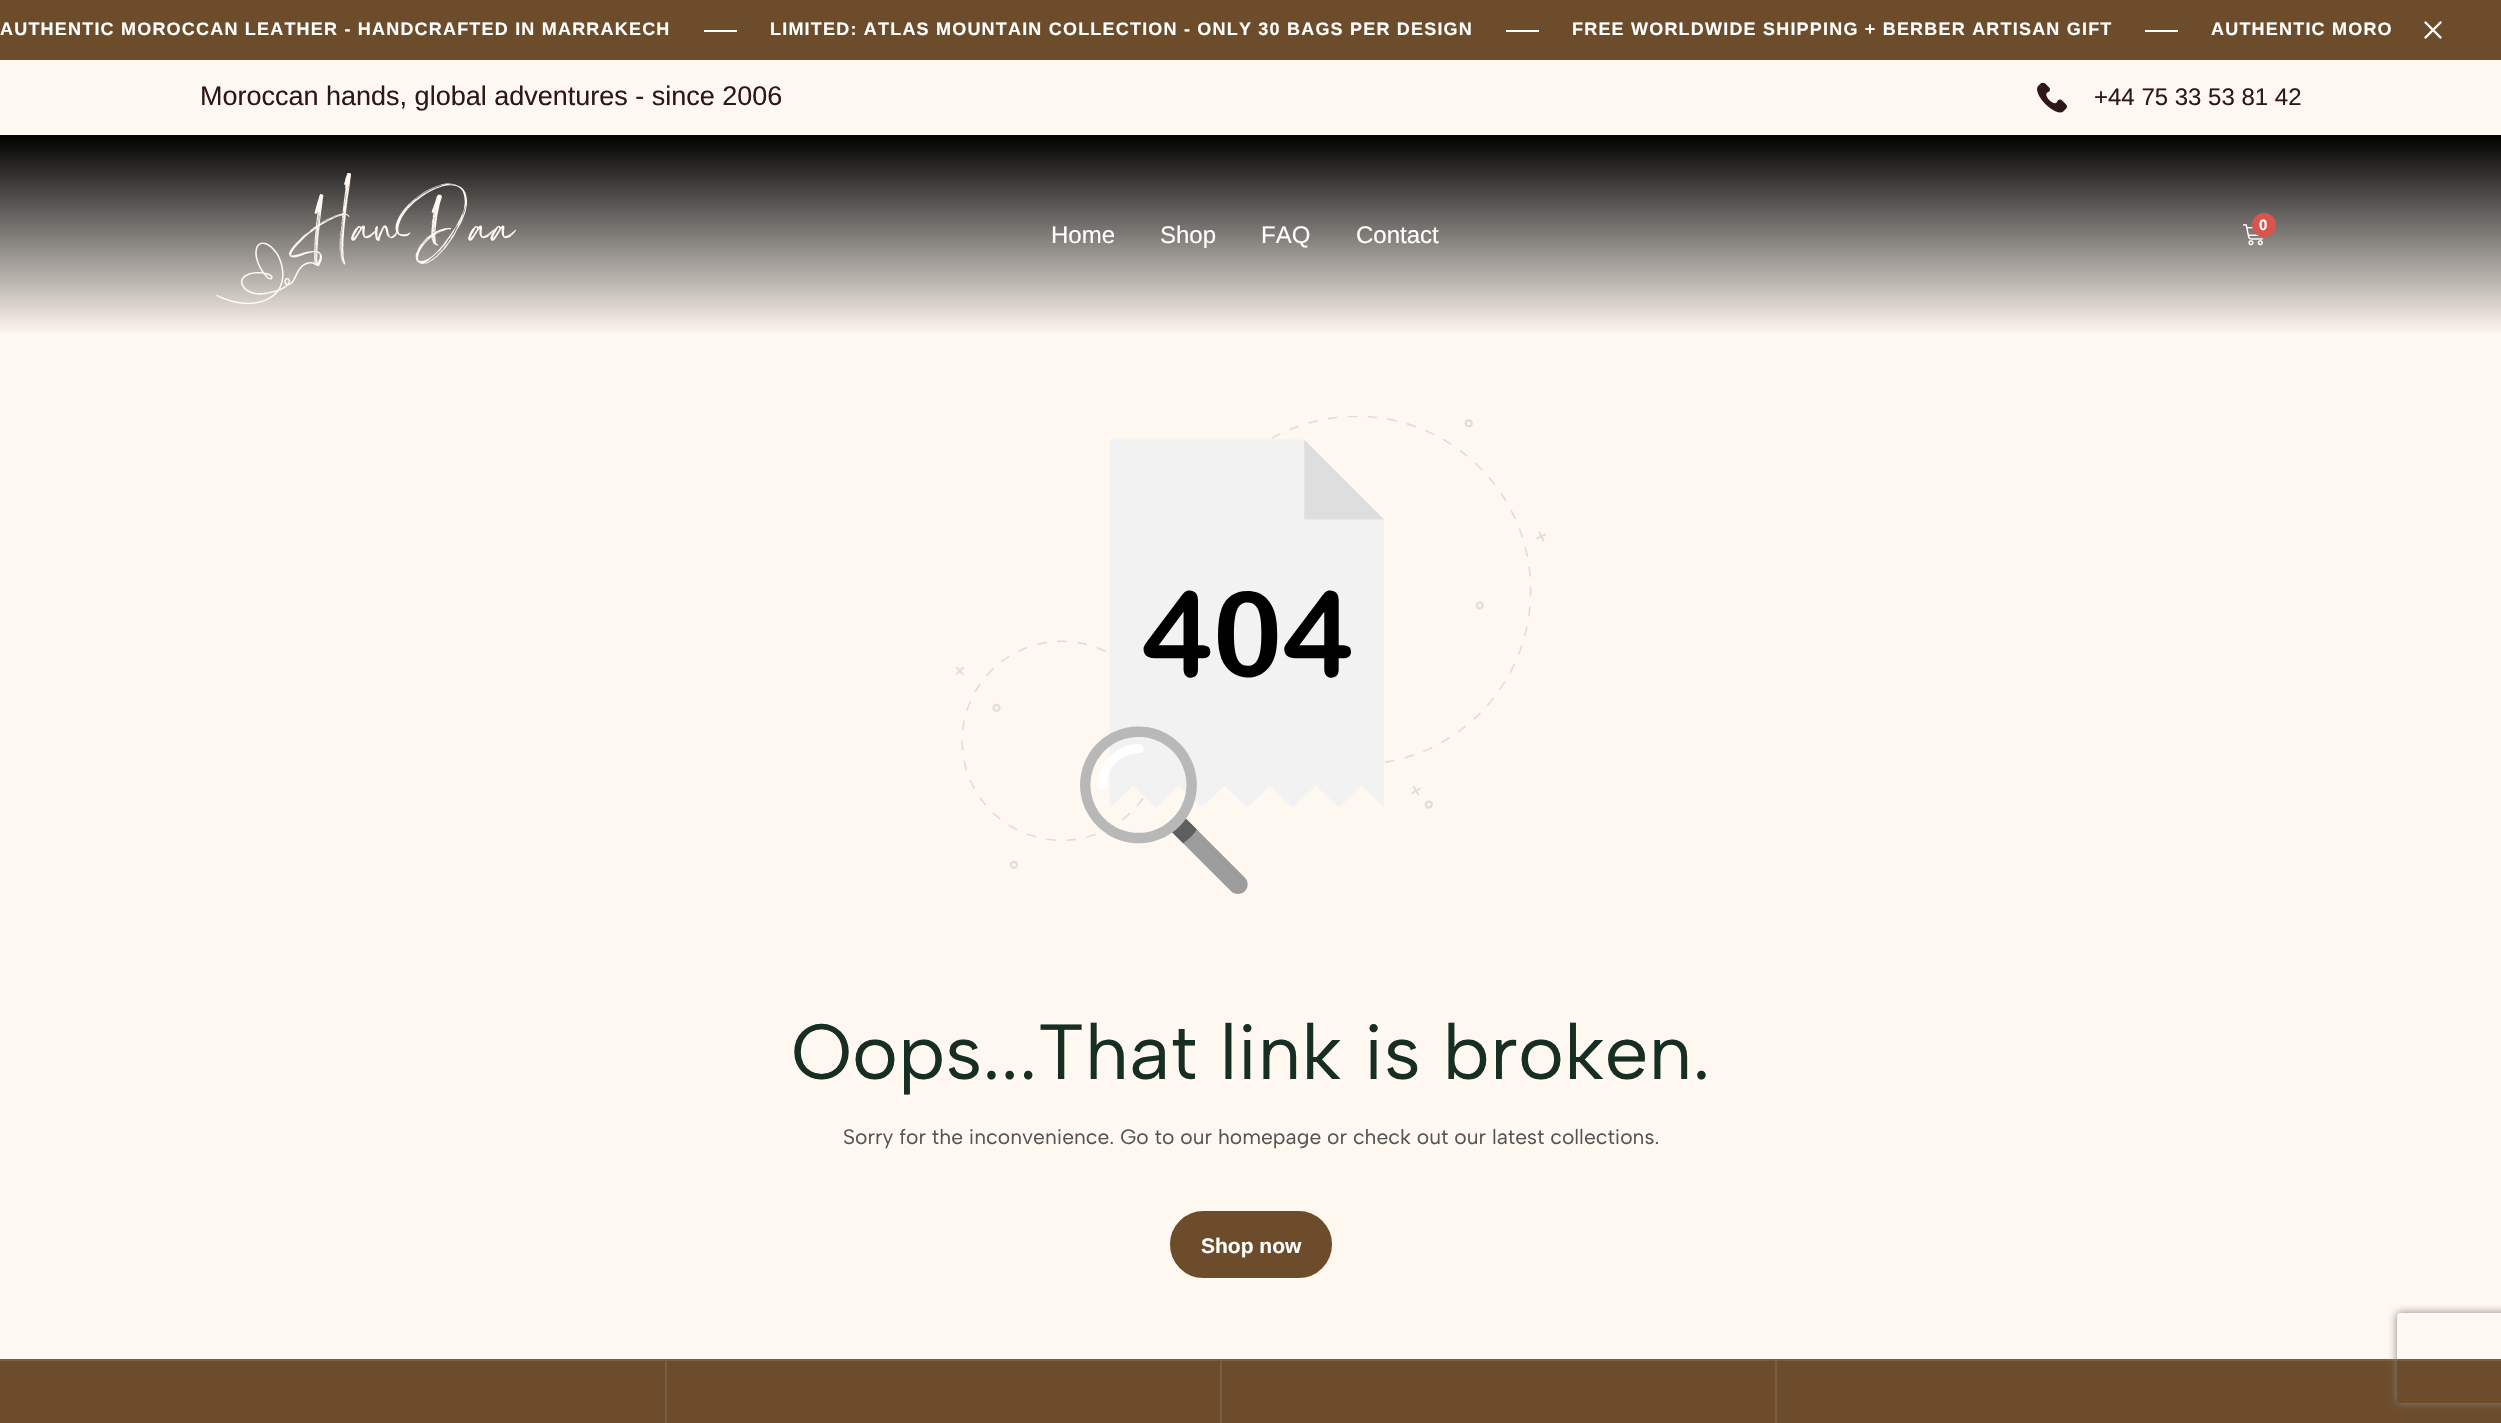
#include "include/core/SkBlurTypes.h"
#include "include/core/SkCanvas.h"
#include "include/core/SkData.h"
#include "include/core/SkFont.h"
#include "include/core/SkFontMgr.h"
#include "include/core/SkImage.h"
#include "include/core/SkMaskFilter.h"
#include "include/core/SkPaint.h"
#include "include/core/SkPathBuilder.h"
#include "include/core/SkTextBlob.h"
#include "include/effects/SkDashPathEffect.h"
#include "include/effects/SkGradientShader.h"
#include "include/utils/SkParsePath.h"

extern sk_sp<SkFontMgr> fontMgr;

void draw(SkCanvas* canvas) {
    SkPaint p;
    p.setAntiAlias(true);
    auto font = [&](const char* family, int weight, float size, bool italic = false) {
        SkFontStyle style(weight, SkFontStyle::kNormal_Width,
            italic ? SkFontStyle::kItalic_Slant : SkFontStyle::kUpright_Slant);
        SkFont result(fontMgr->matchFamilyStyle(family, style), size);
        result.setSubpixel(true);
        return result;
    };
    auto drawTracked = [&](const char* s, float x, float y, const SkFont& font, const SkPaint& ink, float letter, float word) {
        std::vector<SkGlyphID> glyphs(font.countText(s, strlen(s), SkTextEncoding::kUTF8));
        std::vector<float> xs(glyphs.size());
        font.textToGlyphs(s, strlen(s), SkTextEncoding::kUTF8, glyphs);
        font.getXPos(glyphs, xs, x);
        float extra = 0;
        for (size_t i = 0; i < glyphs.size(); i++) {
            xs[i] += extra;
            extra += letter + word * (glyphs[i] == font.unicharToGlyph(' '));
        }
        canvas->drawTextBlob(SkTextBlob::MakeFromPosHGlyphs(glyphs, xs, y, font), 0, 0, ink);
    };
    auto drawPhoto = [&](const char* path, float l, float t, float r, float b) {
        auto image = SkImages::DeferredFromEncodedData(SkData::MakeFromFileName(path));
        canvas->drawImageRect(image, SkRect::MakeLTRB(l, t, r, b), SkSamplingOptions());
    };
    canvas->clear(0xFFFFF8F0);
    p.setColor(0xFF6C4C2B);
    canvas->drawRect(SkRect::MakeLTRB(0, 0, 2501, 60), p);
    auto font1 = font("Liberation Sans", 700, 18);
    p.setColor(0xFFFFFFFF);
    drawTracked("AUTHENTIC MOROCCAN LEATHER - HANDCRAFTED IN MARRAKECH", 0, 35, font1, p, 1.2f, 0);
    canvas->drawRect(SkRect::MakeLTRB(704, 30, 737, 32), p);
    drawTracked("LIMITED: ATLAS MOUNTAIN COLLECTION - ONLY 30 BAGS PER DESIGN", 770, 35, font1, p, 1.2f, 0);
    canvas->drawRect(SkRect::MakeLTRB(1506, 30, 1539, 32), p);
    drawTracked("FREE WORLDWIDE SHIPPING + BERBER ARTISAN GIFT", 1572, 35, font1, p, 1.2f, 0);
    canvas->drawRect(SkRect::MakeLTRB(2145, 30, 2178, 32), p);
    drawTracked("AUTHENTIC MORO", 2211, 35, font1, p, 1.2f, 0);
    drawPhoto("media/1.png", 2424, 21, 2442, 39);
    auto font2 = font("Liberation Sans", 400, 27);
    p.setColor(0xFF2E1717);
    canvas->drawString("Moroccan hands, global adventures - since 2006", 200, 105, font2, p);
    drawPhoto("media/2.png", 2037, 83, 2067, 113);
    auto font3 = font("Liberation Sans", 400, 24);
    canvas->drawString("+44 75 33 53 81 42", 2094, 105, font3, p);
    {
        const SkColor colors[] = {0xFF000000, 0xFFFFF8F0};
        const float stops[] = {0, 1};
        const SkPoint ends[] = {{1251, 135}, {1251, 335}};
        p.setShader(SkGradientShader::MakeLinear(ends, colors, stops, 2, SkTileMode::kClamp));
        p.setAlpha(255);
    }
    canvas->drawRect(SkRect::MakeLTRB(0, 135, 2501, 333), p);
    drawPhoto("media/3.png", 216, 173, 516, 305);
    p.setShader(nullptr);
    p.setColor(0xFFFFFFFF);
    {
        const struct { const char* s; float x, y; } items[] = {
            {"Home", 1051, 243},
            {"Shop", 1160, 243},
            {"FAQ", 1261, 243},
            {"Contact", 1356, 243},
        };
        for (auto [s, x, y] : items) {
            canvas->drawString(s, x, y, font3, p);
        }
    }
    drawPhoto("media/4.png", 2243, 224, 2263, 246);
    p.setColor(0xFFD9534F);
    canvas->drawCircle(2264, 225, 12, p);
    auto font4 = font("Liberation Sans", 700, 15);
    p.setColor(0xFFFFFFFF);
    canvas->drawString("0", 2259, 230, font4, p);
    drawPhoto("media/5.png", 956, 416, 1546, 894);
    auto font5 = font("Albert Sans", 400, 78);
    p.setColor(0xFF172E22);
    canvas->drawString("Oops...That link is broken.", 791, 1079, font5, p);
    auto font6 = font("Albert Sans", 400, 21);
    p.setColor(0xFF545454);
    canvas->drawString("Sorry for the inconvenience. Go to our homepage or check out our latest collections.", 843, 1144, font6, p);
    p.setColor(0xFF6C4C2B);
    canvas->drawRoundRect(SkRect::MakeLTRB(1171, 1212, 1331, 1277), 32.5f, 32.5f, p);
    p.setStyle(SkPaint::kStroke_Style);
    p.setStrokeWidth(2);
    canvas->drawRoundRect(SkRect::MakeLTRB(1171, 1212, 1331, 1277), 32.5f, 32.5f, p);
    auto font7 = font("Liberation Sans", 700, 21);
    p.setStyle(SkPaint::kFill_Style);
    p.setColor(0xFFFFFFFF);
    canvas->drawString("Shop now", 1201, 1253, font7, p);
    {
        const struct { float l, t, r, b; SkColor color; } items[] = {
            {0, 1361, 2501, 1423, 0xFF6C4C2B},
            {0, 1359, 2501, 1361, 0xFF7B5E40},
            {665, 1361, 667, 1423, 0xFF7B5E40},
            {1220, 1361, 1222, 1423, 0xFF7B5E40},
            {1775, 1361, 1777, 1423, 0xFF7B5E40},
        };
        for (auto [l, t, r, b, color] : items) {
            p.setColor(color);
            canvas->drawRect(SkRect::MakeLTRB(l, t, r, b), p);
        }
    }
    canvas->save();
    canvas->clipPath(SkPathBuilder(SkPathFillType::kEvenOdd).moveTo(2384, 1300).lineTo(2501, 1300).lineTo(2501, 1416).lineTo(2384, 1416).close().moveTo(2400, 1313).lineTo(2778, 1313).cubicTo(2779.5f, 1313, 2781, 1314.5f, 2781, 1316).lineTo(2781, 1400).cubicTo(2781, 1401.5f, 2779.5f, 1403, 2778, 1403).lineTo(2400, 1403).cubicTo(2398.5f, 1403, 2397, 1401.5f, 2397, 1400).lineTo(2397, 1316).cubicTo(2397, 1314.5f, 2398.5f, 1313, 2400, 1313).close().detach(), true);
    p.setColor(0xFF808080);
    p.setMaskFilter(SkMaskFilter::MakeBlur(kNormal_SkBlurStyle, 4));
    canvas->drawRoundRect(SkRect::MakeLTRB(2397, 1313, 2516, 1403), 3, 3, p);
    p.setMaskFilter(nullptr);
    canvas->restore();
}
